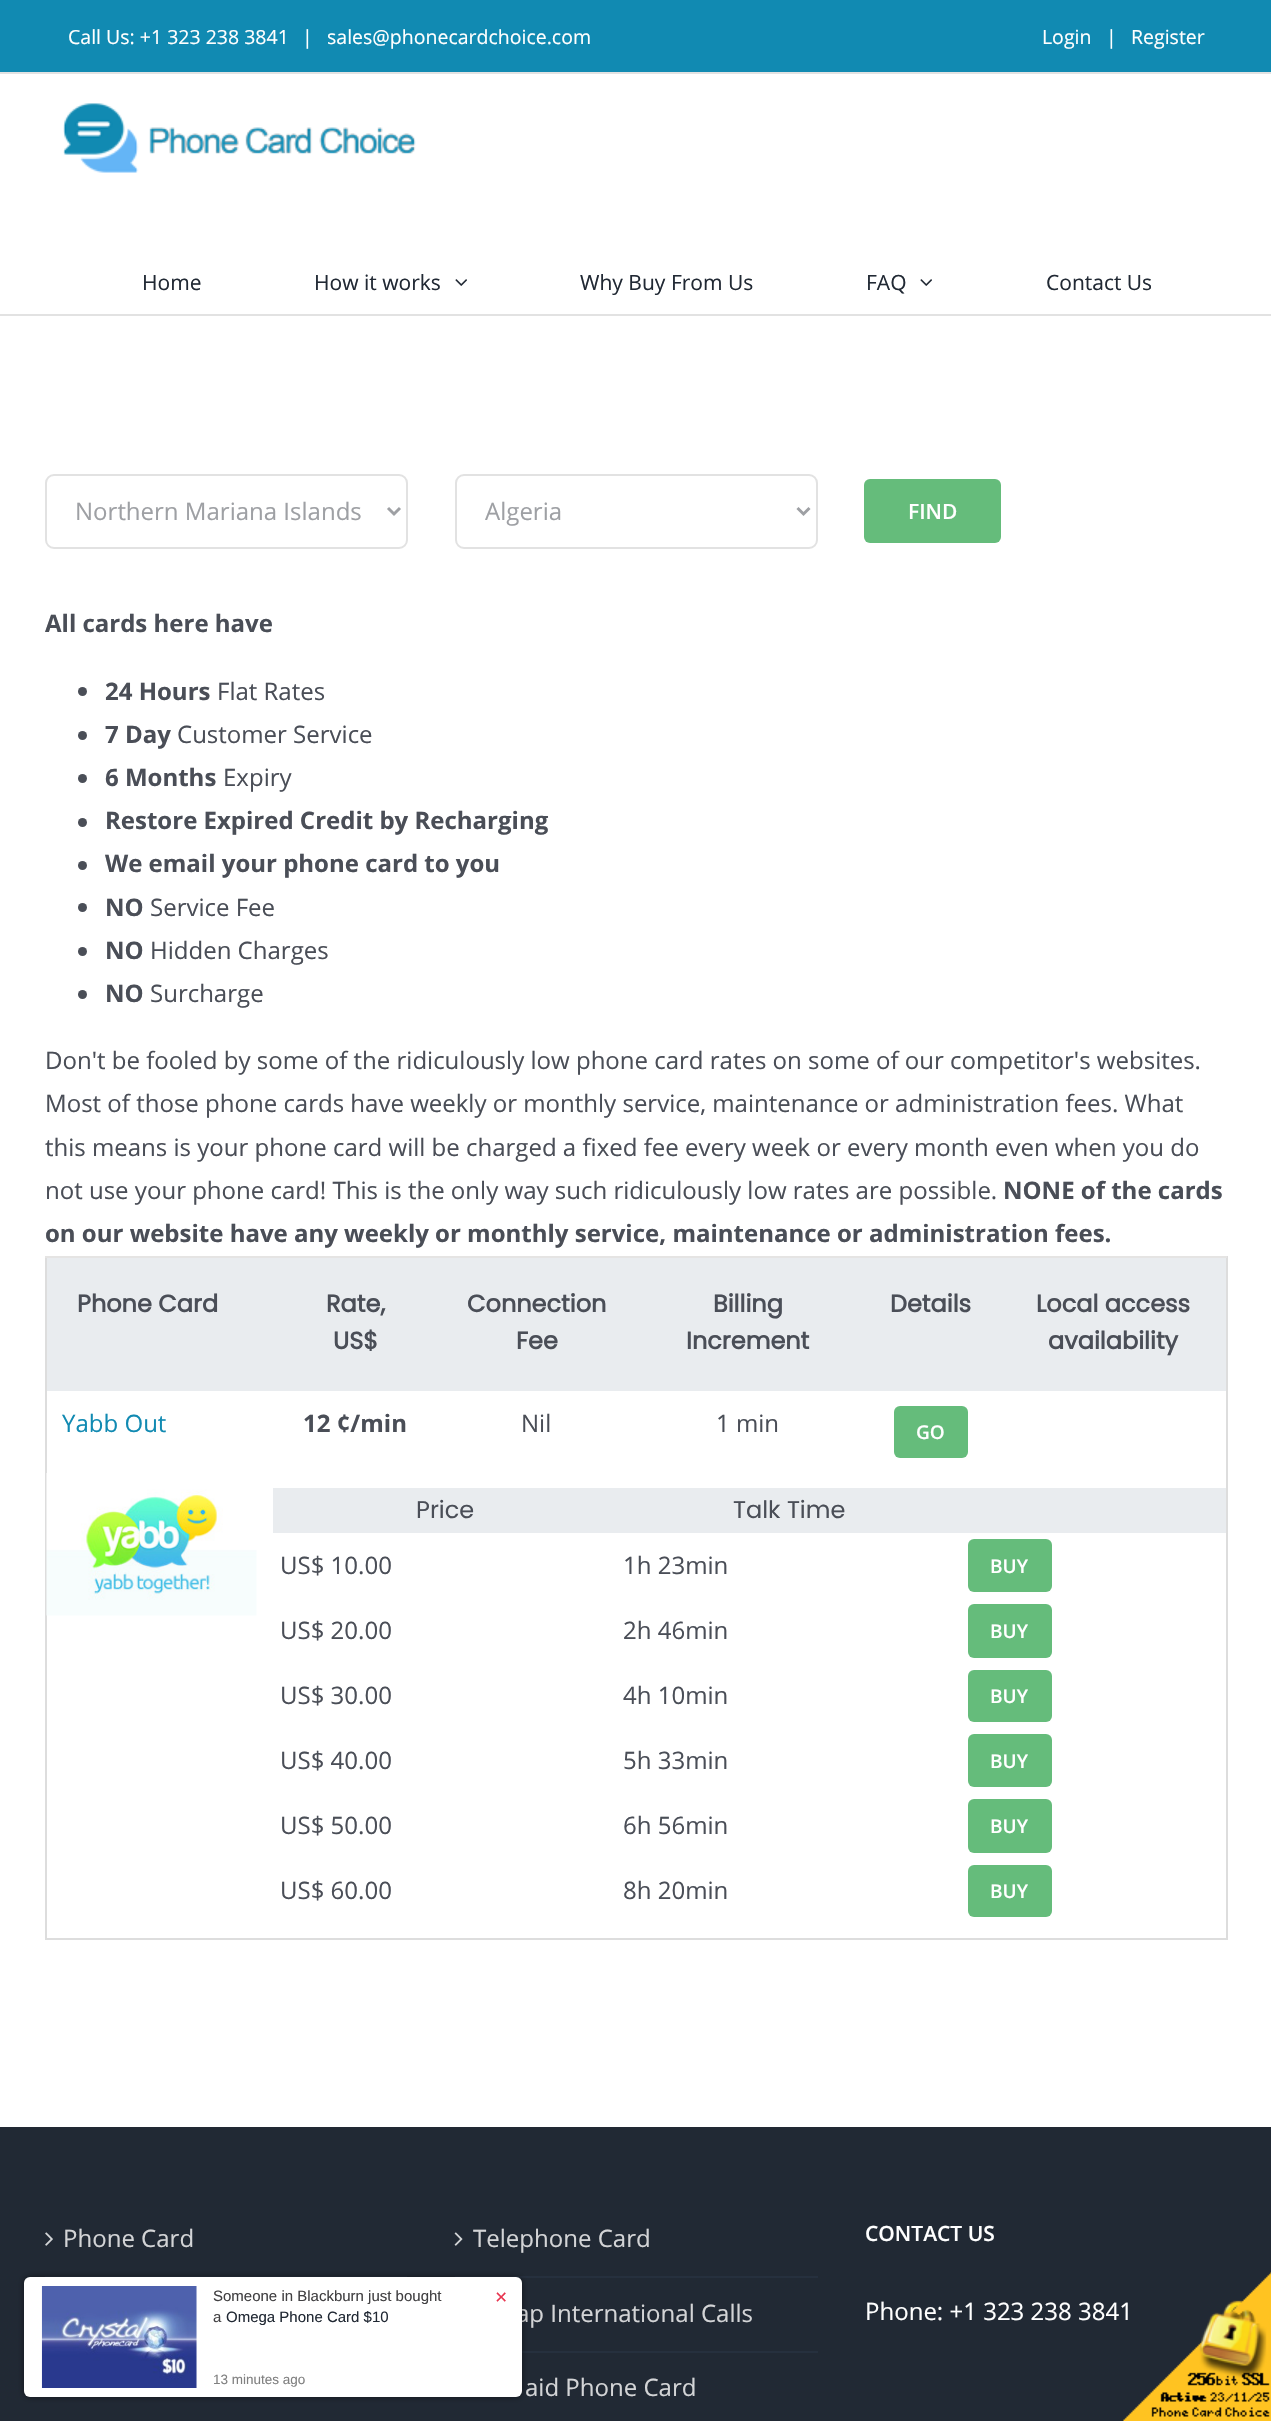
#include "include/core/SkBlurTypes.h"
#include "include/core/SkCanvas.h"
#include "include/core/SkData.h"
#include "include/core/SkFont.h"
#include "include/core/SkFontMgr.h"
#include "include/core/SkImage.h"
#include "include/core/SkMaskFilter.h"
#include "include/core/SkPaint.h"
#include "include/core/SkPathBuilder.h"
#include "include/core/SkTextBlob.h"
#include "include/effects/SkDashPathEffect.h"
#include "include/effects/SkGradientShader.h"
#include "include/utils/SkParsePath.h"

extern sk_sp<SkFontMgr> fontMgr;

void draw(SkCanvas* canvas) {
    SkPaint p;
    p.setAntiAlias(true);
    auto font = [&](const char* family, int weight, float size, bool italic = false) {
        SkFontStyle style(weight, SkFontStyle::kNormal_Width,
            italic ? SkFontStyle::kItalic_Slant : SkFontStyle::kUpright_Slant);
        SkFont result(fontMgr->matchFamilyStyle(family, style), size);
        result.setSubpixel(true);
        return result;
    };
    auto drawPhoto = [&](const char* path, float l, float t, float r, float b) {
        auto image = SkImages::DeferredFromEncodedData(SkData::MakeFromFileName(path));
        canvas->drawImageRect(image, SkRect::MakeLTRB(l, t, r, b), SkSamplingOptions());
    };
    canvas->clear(0xFFFFFFFF);
    p.setColor(0xFF118AB2);
    canvas->drawRect(SkRect::MakeLTRB(0, 0, 1271, 72), p);
    p.setColor(0xFFE2E2E2);
    canvas->drawRect(SkRect::MakeLTRB(0, 72, 1271, 74), p);
    auto font1 = font("Open Sans", 400, 19.5f);
    p.setColor(0xFFFFFFFF);
    {
        const struct { const char* s; float x, y; } items[] = {
            {"Call Us: +1 323 238 3841", 68, 44},
            {"|", 302, 44},
            {"sales@phonecardchoice.com", 327, 44},
            {"Login", 1042, 44},
            {"|", 1106, 44},
            {"Register", 1131, 44},
        };
        for (auto [s, x, y] : items) {
            canvas->drawString(s, x, y, font1, p);
        }
    }
    p.setColor(0xFFE2E2E2);
    canvas->drawRect(SkRect::MakeLTRB(0, 314, 1271, 316), p);
    drawPhoto("media/1.png", 63, 103, 416, 173);
    auto font2 = font("Open Sans", 400, 21);
    p.setColor(0xFF212934);
    canvas->drawString("Home", 142, 290, font2, p);
    canvas->drawString("How it works", 314, 290, font2, p);
    drawPhoto("media/2.png", 455, 279, 467, 286);
    canvas->drawString("Why Buy From Us", 580, 290, font2, p);
    canvas->drawString("FAQ", 866, 290, font2, p);
    drawPhoto("media/2.png", 920, 279, 932, 286);
    canvas->drawString("Contact Us", 1046, 290, font2, p);
    p.setStyle(SkPaint::kStroke_Style);
    p.setStrokeWidth(2);
    p.setColor(0xFFE2E2E2);
    canvas->drawRoundRect(SkRect::MakeLTRB(46, 475, 407, 548), 8, 8, p);
    p.setStrokeWidth(3);
    p.setColor(0xFF9EA0A4);
    canvas->drawPath(SkPathBuilder().moveTo(388, 508).lineTo(394, 514).lineTo(400, 508).detach(), p);
    auto font3 = font("Open Sans", 400, 24);
    p.setStyle(SkPaint::kFill_Style);
    canvas->drawString("Northern Mariana Islands", 75, 520, font3, p);
    p.setStyle(SkPaint::kStroke_Style);
    p.setStrokeWidth(2);
    p.setColor(0xFFE2E2E2);
    canvas->drawRoundRect(SkRect::MakeLTRB(456, 475, 817, 548), 8, 8, p);
    p.setStrokeWidth(3);
    p.setColor(0xFF9EA0A4);
    canvas->drawPath(SkPathBuilder().moveTo(797.5f, 508).lineTo(803.5f, 514).lineTo(809.5f, 508).detach(), p);
    p.setStyle(SkPaint::kFill_Style);
    canvas->drawString("Algeria", 485, 520, font3, p);
    p.setColor(0xFF65BC7B);
    canvas->drawRoundRect(SkRect::MakeLTRB(864, 479, 1001, 543), 6, 6, p);
    auto font4 = font("Open Sans", 600, 21);
    p.setColor(0xFFFFFFFF);
    canvas->drawString("FIND", 908, 519, font4, p);
    auto font5 = font("Open Sans", 700, 24);
    p.setColor(0xFF4A4E57);
    canvas->drawString("All cards here have", 45, 632, font5, p);
    canvas->drawCircle(82.5f, 691.5f, 4.5f, p);
    canvas->drawString("24 Hours", 105, 700, font5, p);
    canvas->drawString("Flat Rates", 217, 700, font3, p);
    canvas->drawCircle(82.5f, 735.5f, 4.5f, p);
    canvas->drawString("7 Day", 105, 743, font5, p);
    canvas->drawString("Customer Service", 177, 743, font3, p);
    canvas->drawCircle(82.5f, 778.5f, 4.5f, p);
    canvas->drawString("6 Months", 105, 786, font5, p);
    canvas->drawString("Expiry", 223, 786, font3, p);
    canvas->drawCircle(82.5f, 822.5f, 4.5f, p);
    canvas->drawString("Restore Expired Credit by Recharging", 105, 829, font5, p);
    canvas->drawCircle(82.5f, 865.5f, 4.5f, p);
    canvas->drawString("We email your phone card to you", 105, 872, font5, p);
    canvas->drawCircle(82.5f, 907.5f, 4.5f, p);
    canvas->drawString("NO", 105, 916, font5, p);
    canvas->drawString("Service Fee", 150, 916, font3, p);
    canvas->drawCircle(82.5f, 951.5f, 4.5f, p);
    canvas->drawString("NO", 105, 959, font5, p);
    canvas->drawString("Hidden Charges", 150, 959, font3, p);
    canvas->drawCircle(82.5f, 994.5f, 4.5f, p);
    canvas->drawString("NO", 105, 1002, font5, p);
    {
        const struct { const char* s; float x, y; } items[] = {
            {"Surcharge", 150, 1002},
            {"Don't be fooled by some of the ridiculously low phone card rates on some of our competitor's websites.", 45, 1069},
            {"Most of those phone cards have weekly or monthly service, maintenance or administration fees. What", 45, 1112},
            {"this means is your phone card will be charged a fixed fee every week or every month even when you do", 45, 1156},
            {"not use your phone card! This is the only way such ridiculously low rates are possible.", 45, 1199},
        };
        for (auto [s, x, y] : items) {
            canvas->drawString(s, x, y, font3, p);
        }
    }
    canvas->drawString("NONE of the cards", 1003, 1199, font5, p);
    canvas->drawString("on our website have any weekly or monthly service, maintenance or administration fees.", 45, 1242, font5, p);
    {
        const struct { float l, t, r, b; SkColor color; } items[] = {
            {1226, 1256, 1228, 1940, 0xFFDDDDDD},
            {45, 1938, 1227, 1940, 0xFFDDDDDD},
            {45, 1256, 47, 1940, 0xFFDDDDDD},
            {47, 1258, 1226, 1391, 0xFFE9ECEF},
        };
        for (auto [l, t, r, b, color] : items) {
            p.setColor(color);
            canvas->drawRect(SkRect::MakeLTRB(l, t, r, b), p);
        }
    }
    auto font6 = font("Poppins", 700, 24);
    p.setColor(0xFF4A4E57);
    {
        const struct { const char* s; float x, y; } items[] = {
            {"Phone Card", 77, 1312},
            {"Rate,", 326, 1312},
            {"US$", 333, 1349},
            {"Connection", 467, 1312},
            {"Fee", 516, 1349},
            {"Billing", 713, 1312},
            {"Increment", 686, 1349},
            {"Details", 890, 1312},
        };
        for (auto [s, x, y] : items) {
            canvas->drawString(s, x, y, font6, p);
        }
    }
    p.setColor(0xFFE5E4E3);
    canvas->drawRect(SkRect::MakeLTRB(45, 1256, 1227, 1258), p);
    p.setColor(0xFF4A4E57);
    canvas->drawString("Local access", 1036, 1312, font6, p);
    canvas->drawString("availability", 1048, 1349, font6, p);
    p.setColor(0xFF118AB2);
    canvas->drawString("Yabb Out", 62, 1432, font3, p);
    p.setColor(0xFF4A4E57);
    canvas->drawString("12 ¢/min", 303, 1432, font5, p);
    canvas->drawString("Nil", 521, 1432, font3, p);
    canvas->drawString("1 min", 716, 1432, font3, p);
    p.setColor(0xFF65BC7B);
    canvas->drawRoundRect(SkRect::MakeLTRB(894, 1406, 968, 1458), 6, 6, p);
    auto font7 = font("Open Sans", 600, 19);
    p.setColor(0xFFFFFFFF);
    canvas->drawString("GO", 916, 1439, font7, p);
    drawPhoto("media/3.png", 46, 1473, 257, 1616);
    p.setColor(0xFFE9ECEF);
    canvas->drawRect(SkRect::MakeLTRB(273, 1488, 1226, 1533), p);
    auto font8 = font("Poppins", 400, 24);
    p.setColor(0xFF4A4E57);
    canvas->drawString("Price", 416, 1518, font8, p);
    canvas->drawString("Talk Time", 733, 1518, font8, p);
    canvas->drawString("US$ 10.00", 280, 1574, font3, p);
    canvas->drawString("1h 23min", 623, 1574, font3, p);
    p.setColor(0xFF65BC7B);
    canvas->drawRoundRect(SkRect::MakeLTRB(968, 1539, 1052, 1592), 6, 6, p);
    p.setColor(0xFFFFFFFF);
    canvas->drawString("BUY", 990, 1573, font7, p);
    p.setColor(0xFF4A4E57);
    canvas->drawString("US$ 20.00", 280, 1639, font3, p);
    canvas->drawString("2h 46min", 623, 1639, font3, p);
    p.setColor(0xFF65BC7B);
    canvas->drawRoundRect(SkRect::MakeLTRB(968, 1604, 1052, 1658), 6, 6, p);
    p.setColor(0xFFFFFFFF);
    canvas->drawString("BUY", 990, 1638, font7, p);
    p.setColor(0xFF4A4E57);
    canvas->drawString("US$ 30.00", 280, 1704, font3, p);
    canvas->drawString("4h 10min", 623, 1704, font3, p);
    p.setColor(0xFF65BC7B);
    canvas->drawRoundRect(SkRect::MakeLTRB(968, 1670, 1052, 1722), 6, 6, p);
    p.setColor(0xFFFFFFFF);
    canvas->drawString("BUY", 990, 1703, font7, p);
    p.setColor(0xFF4A4E57);
    canvas->drawString("US$ 40.00", 280, 1769, font3, p);
    canvas->drawString("5h 33min", 623, 1769, font3, p);
    p.setColor(0xFF65BC7B);
    canvas->drawRoundRect(SkRect::MakeLTRB(968, 1734, 1052, 1787), 6, 6, p);
    p.setColor(0xFFFFFFFF);
    canvas->drawString("BUY", 990, 1768, font7, p);
    p.setColor(0xFF4A4E57);
    canvas->drawString("US$ 50.00", 280, 1834, font3, p);
    canvas->drawString("6h 56min", 623, 1834, font3, p);
    p.setColor(0xFF65BC7B);
    canvas->drawRoundRect(SkRect::MakeLTRB(968, 1799, 1052, 1853), 6, 6, p);
    p.setColor(0xFFFFFFFF);
    canvas->drawString("BUY", 990, 1833, font7, p);
    p.setColor(0xFF4A4E57);
    canvas->drawString("US$ 60.00", 280, 1899, font3, p);
    canvas->drawString("8h 20min", 623, 1899, font3, p);
    p.setColor(0xFF65BC7B);
    canvas->drawRoundRect(SkRect::MakeLTRB(968, 1865, 1052, 1917), 6, 6, p);
    p.setColor(0xFFFFFFFF);
    canvas->drawString("BUY", 990, 1898, font7, p);
    p.setColor(0xFF212934);
    canvas->drawRect(SkRect::MakeLTRB(0, 2127, 1271, 2421), p);
    p.setColor(0xFF26303E);
    canvas->drawRect(SkRect::MakeLTRB(45, 2276, 407, 2277), p);
    drawPhoto("media/4.png", 45, 2232, 53, 2246);
    p.setColor(0xFFD3D4D6);
    canvas->drawString("Phone Card", 63, 2247, font3, p);
    p.setColor(0xFF26303E);
    canvas->drawRect(SkRect::MakeLTRB(455, 2276, 818, 2278), p);
    drawPhoto("media/5.png", 454, 2232, 463, 2246);
    p.setColor(0xFFD3D4D6);
    canvas->drawString("Telephone Card", 473, 2247, font3, p);
    p.setColor(0xFF26303E);
    canvas->drawRect(SkRect::MakeLTRB(522, 2351, 818, 2353), p);
    p.setColor(0xFFD3D4D6);
    canvas->drawString("ap International Calls", 516, 2322, font3, p);
    canvas->drawString("aid Phone Card", 525, 2396, font3, p);
    p.setColor(0xFFFFFFFF);
    canvas->drawString("CONTACT US", 865, 2241, font4, p);
    canvas->drawString("Phone: +1 323 238 3841", 865, 2320, font3, p);
    p.setColor(0x80000000);
    p.setMaskFilter(SkMaskFilter::MakeBlur(kNormal_SkBlurStyle, 3));
    canvas->drawRoundRect(SkRect::MakeLTRB(24, 2277, 522, 2397), 6, 6, p);
    p.setMaskFilter(nullptr);
    p.setColor(0xFFFFFFFF);
    canvas->drawRoundRect(SkRect::MakeLTRB(24, 2277, 522, 2397), 6, 6, p);
    drawPhoto("media/6.png", 41, 2286, 197, 2388);
    auto font9 = font("Liberation Sans", 400, 15);
    p.setColor(0xFF414042);
    canvas->drawString("Someone in Blackburn just bought", 213, 2301, font9, p);
    canvas->drawString("a", 213, 2322, font9, p);
    p.setColor(0xFF212934);
    canvas->drawString("Omega Phone Card $10", 226, 2322, font9, p);
    auto font10 = font("Liberation Sans", 400, 21);
    p.setColor(0xFFE83650);
    canvas->drawString("×", 495, 2304, font10, p);
    auto font11 = font("Liberation Sans", 400, 13.5f);
    p.setColor(0xFF808080);
    canvas->drawString("13 minutes ago", 213, 2384, font11, p);
    drawPhoto("media/7.png", 1123, 2272, 1271, 2421);
}
